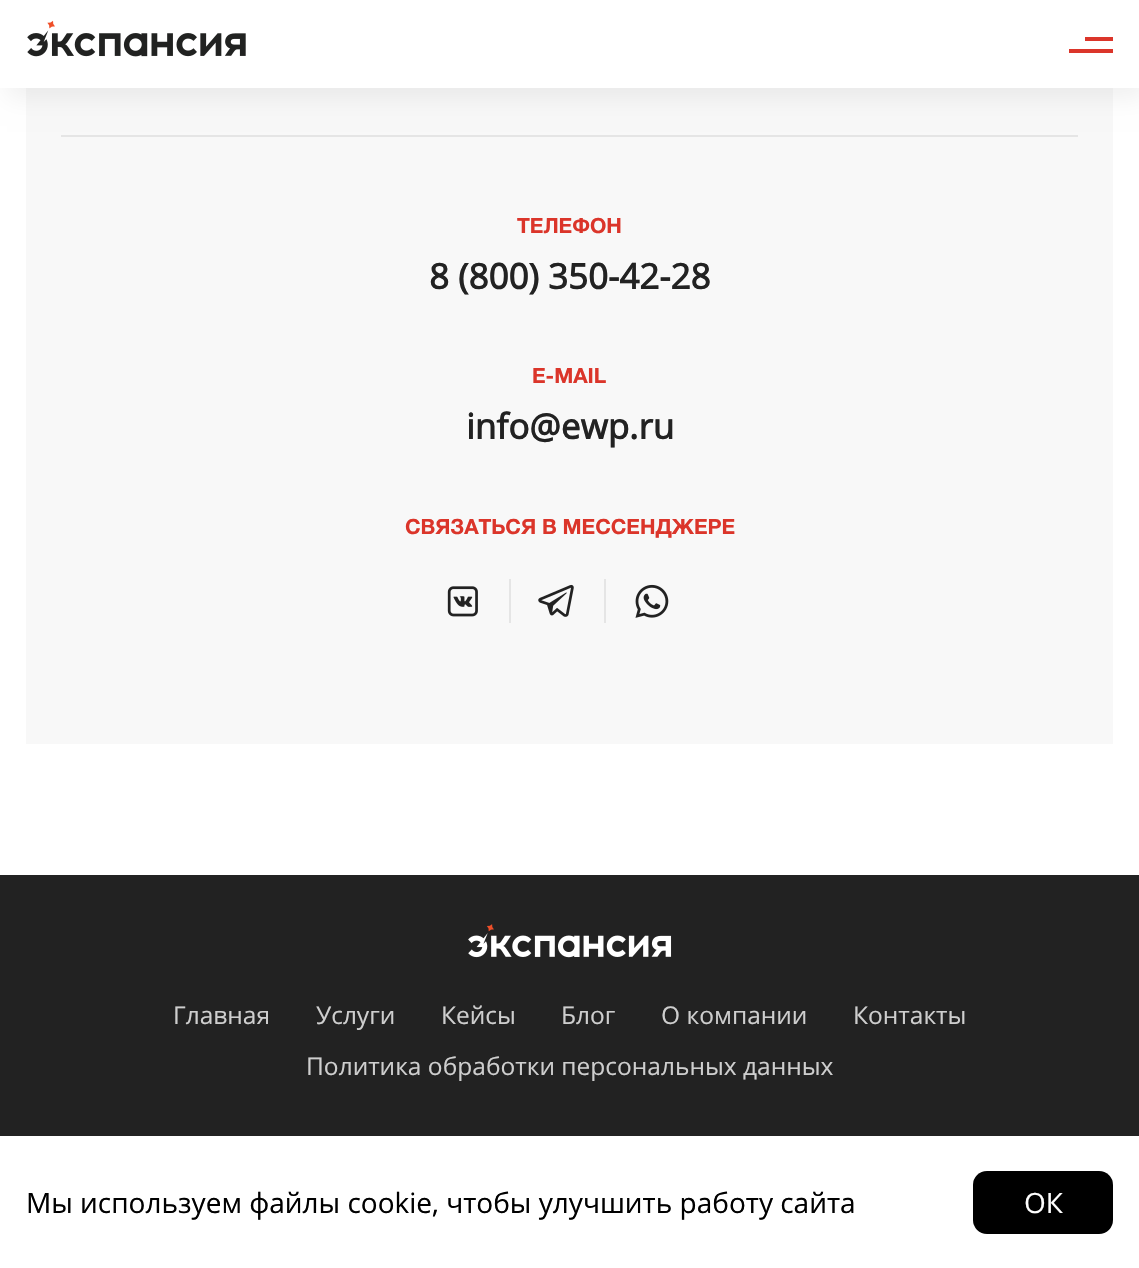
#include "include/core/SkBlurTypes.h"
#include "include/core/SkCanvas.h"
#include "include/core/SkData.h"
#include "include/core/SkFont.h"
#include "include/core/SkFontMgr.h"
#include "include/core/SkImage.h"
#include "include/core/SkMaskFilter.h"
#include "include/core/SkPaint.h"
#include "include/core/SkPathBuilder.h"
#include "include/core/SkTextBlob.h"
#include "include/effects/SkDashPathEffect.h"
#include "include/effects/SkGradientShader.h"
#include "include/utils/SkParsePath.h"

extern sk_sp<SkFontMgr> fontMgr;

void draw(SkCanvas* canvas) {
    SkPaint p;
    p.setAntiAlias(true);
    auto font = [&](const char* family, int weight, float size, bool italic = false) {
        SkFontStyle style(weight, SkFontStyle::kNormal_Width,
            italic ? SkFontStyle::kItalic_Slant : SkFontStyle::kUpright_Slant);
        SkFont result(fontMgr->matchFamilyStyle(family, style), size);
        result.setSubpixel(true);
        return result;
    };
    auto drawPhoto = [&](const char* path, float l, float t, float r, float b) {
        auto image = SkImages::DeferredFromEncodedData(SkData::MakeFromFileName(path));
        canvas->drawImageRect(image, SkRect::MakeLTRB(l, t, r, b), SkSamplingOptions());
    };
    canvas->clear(0xFFFFFFFF);
    p.setColor(0xFFF8F8F8);
    canvas->drawRect(SkRect::MakeLTRB(26, 88, 1113, 744), p);
    p.setColor(0x0F000000);
    p.setMaskFilter(SkMaskFilter::MakeBlur(kNormal_SkBlurStyle, 11.5f));
    canvas->drawRect(SkRect::MakeLTRB(7, 11, 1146, 98), p);
    p.setMaskFilter(nullptr);
    p.setColor(0xFFFFFFFF);
    canvas->drawRect(SkRect::MakeLTRB(0, 0, 1139, 88), p);
    drawPhoto("media/1.png", 27, 20, 246, 57);
    {
        const struct { float l, t, r, b; SkColor color; } items[] = {
            {1085, 37, 1113, 41, 0xFFDB352A},
            {1069, 49, 1113, 53, 0xFFDB352A},
            {61, 135, 1078, 137, 0xFFE5E5E5},
        };
        for (auto [l, t, r, b, color] : items) {
            p.setColor(color);
            canvas->drawRect(SkRect::MakeLTRB(l, t, r, b), p);
        }
    }
    auto font1 = font("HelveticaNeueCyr", 700, 21);
    p.setColor(0xFFDB352A);
    canvas->drawString("ТЕЛЕФОН", 517, 233, font1, p);
    auto font2 = font("Open Sans", 700, 35);
    p.setColor(0xFF222222);
    canvas->drawString("8 (800) 350-42-28", 429, 289, font2, p);
    p.setColor(0xFFDB352A);
    canvas->drawString("E-MAIL", 532, 383, font1, p);
    p.setColor(0xFF222222);
    canvas->drawString("info@ewp.ru", 466, 439, font2, p);
    p.setColor(0xFFDB352A);
    canvas->drawString("СВЯЗАТЬСЯ В МЕССЕНДЖЕРЕ", 405, 534, font1, p);
    p.setColor(0xFFE5E5E5);
    canvas->drawRect(SkRect::MakeLTRB(509, 579, 511, 623), p);
    drawPhoto("media/2.png", 447, 586, 478, 617);
    canvas->drawRect(SkRect::MakeLTRB(604, 579, 606, 623), p);
    drawPhoto("media/3.png", 538, 584, 574, 617);
    drawPhoto("media/4.png", 635, 584, 669, 618);
    p.setColor(0xFF222222);
    canvas->drawRect(SkRect::MakeLTRB(0, 875, 1139, 1136), p);
    drawPhoto("media/5.png", 468, 924, 672, 958);
    auto font3 = font("Open Sans", 400, 24.5f);
    p.setColor(0xFFCECECE);
    {
        const struct { const char* s; float x, y; } items[] = {
            {"Главная", 173, 1024},
            {"Услуги", 316, 1024},
            {"Кейсы", 441, 1024},
            {"Блог", 561, 1024},
            {"О компании", 661, 1024},
            {"Контакты", 853, 1024},
            {"Политика обработки персональных данных", 306, 1075},
        };
        for (auto [s, x, y] : items) {
            canvas->drawString(s, x, y, font3, p);
        }
    }
    auto font4 = font("Open Sans", 400, 28);
    p.setColor(0xFF000000);
    canvas->drawString("Мы используем файлы cookie, чтобы улучшить работу сайта", 26, 1213, font4, p);
    canvas->drawRoundRect(SkRect::MakeLTRB(973, 1171, 1113, 1234), 14, 14, p);
    p.setColor(0xFFFFFFFF);
    canvas->drawString("ОК", 1024, 1213, font4, p);
}
